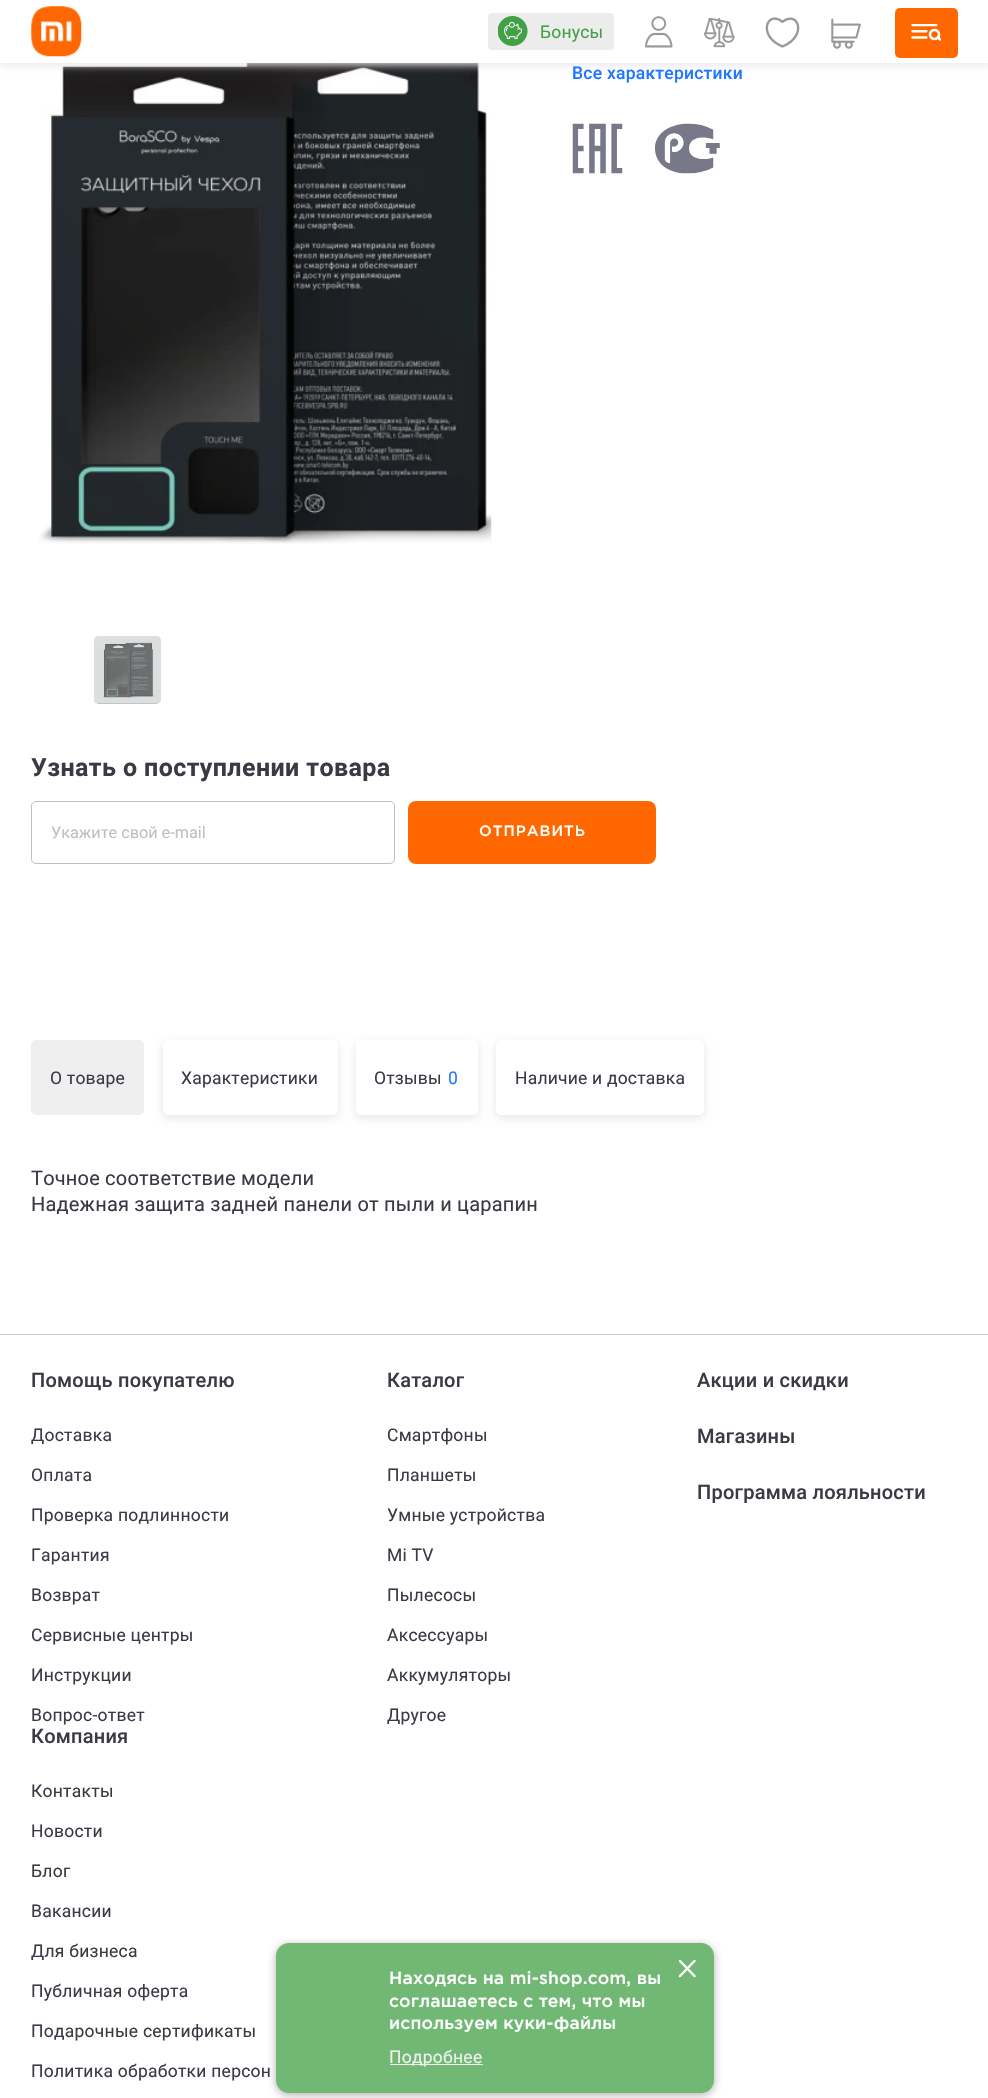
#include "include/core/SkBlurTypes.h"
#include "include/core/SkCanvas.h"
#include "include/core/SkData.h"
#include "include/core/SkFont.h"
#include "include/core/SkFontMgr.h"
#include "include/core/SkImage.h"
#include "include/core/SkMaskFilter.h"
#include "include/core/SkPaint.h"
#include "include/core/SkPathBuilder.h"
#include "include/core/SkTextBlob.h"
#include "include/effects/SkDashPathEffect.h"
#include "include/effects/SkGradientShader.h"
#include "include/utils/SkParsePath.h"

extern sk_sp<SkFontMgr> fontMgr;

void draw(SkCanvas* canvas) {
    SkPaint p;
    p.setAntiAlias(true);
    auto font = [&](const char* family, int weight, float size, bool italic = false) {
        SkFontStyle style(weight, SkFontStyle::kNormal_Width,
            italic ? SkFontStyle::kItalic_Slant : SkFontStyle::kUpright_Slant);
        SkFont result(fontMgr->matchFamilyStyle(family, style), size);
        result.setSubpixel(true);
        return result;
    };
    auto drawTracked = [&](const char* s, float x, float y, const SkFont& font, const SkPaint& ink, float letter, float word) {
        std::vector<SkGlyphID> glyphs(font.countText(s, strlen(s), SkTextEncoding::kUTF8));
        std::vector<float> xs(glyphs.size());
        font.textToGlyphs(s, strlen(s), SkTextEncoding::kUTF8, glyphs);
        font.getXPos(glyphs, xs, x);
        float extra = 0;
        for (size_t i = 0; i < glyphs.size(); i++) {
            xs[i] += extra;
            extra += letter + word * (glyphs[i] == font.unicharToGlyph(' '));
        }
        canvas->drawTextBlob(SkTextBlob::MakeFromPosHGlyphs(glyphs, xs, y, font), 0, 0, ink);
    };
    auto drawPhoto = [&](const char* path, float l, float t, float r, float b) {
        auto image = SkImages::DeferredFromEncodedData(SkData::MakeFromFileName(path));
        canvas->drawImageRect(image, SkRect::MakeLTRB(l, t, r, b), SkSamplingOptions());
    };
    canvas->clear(0xFFFFFFFF);
    drawPhoto("media/8.png", 39, 63, 492, 544);
    p.setColor(0xFFE6E6EF);
    p.setMaskFilter(SkMaskFilter::MakeBlur(kNormal_SkBlurStyle, 4));
    canvas->drawRect(SkRect::MakeLTRB(0, 3, 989, 65), p);
    p.setMaskFilter(nullptr);
    p.setColor(0xFFFFFFFF);
    canvas->drawRect(SkRect::MakeLTRB(0, 0, 988, 63), p);
    drawPhoto("media/1.png", 31, 6, 82, 57);
    p.setColor(0xFFFF6700);
    canvas->drawRoundRect(SkRect::MakeLTRB(895, 8, 958, 58), 5, 5, p);
    drawPhoto("media/2.png", 911, 24, 941, 41);
    p.setColor(0xFFECECEC);
    canvas->drawRoundRect(SkRect::MakeLTRB(488, 13, 614, 50), 4, 4, p);
    drawPhoto("media/3.png", 498, 16, 528, 46);
    auto font1 = font("Roboto", 400, 17.5f);
    p.setColor(0xFF43A047);
    drawTracked("Бонусы", 540, 38, font1, p, 0.2f, 0);
    drawPhoto("media/4.png", 645, 16, 673, 48);
    drawPhoto("media/5.png", 704, 18, 735, 48);
    drawPhoto("media/6.png", 765, 17, 800, 48);
    drawPhoto("media/7.png", 831, 18, 861, 49);
    p.setColor(0xFFBBBCBC);
    canvas->drawRoundRect(SkRect::MakeLTRB(94, 636, 161, 704), 5, 5, p);
    drawPhoto("media/9.png", 94, 636, 161, 704);
    auto font2 = font("Roboto", 500, 17.5f);
    p.setColor(0xFF1D77FF);
    drawTracked("Все характеристики", 572, 79, font2, p, 0.25f, 0);
    drawPhoto("media/10.png", 572, 123, 623, 174);
    drawPhoto("media/11.png", 655, 123, 720, 174);
    auto font3 = font("Roboto", 700, 25);
    p.setColor(0xFF3A3A44);
    drawTracked("Узнать о поступлении товара", 31, 776, font3, p, 0.4f, 0);
    p.setStyle(SkPaint::kStroke_Style);
    p.setStrokeWidth(1);
    p.setColor(0xFFBEBFC3);
    canvas->drawRoundRect(SkRect::MakeLTRB(31.5f, 801.5f, 394.5f, 863.5f), 4.5f, 4.5f, p);
    auto font4 = font("Roboto", 400, 16.25f);
    p.setStyle(SkPaint::kFill_Style);
    canvas->drawString("Укажите свой e-mail", 51, 838, font4, p);
    p.setColor(0xFFFF6700);
    canvas->drawRoundRect(SkRect::MakeLTRB(408, 801, 656, 864), 8, 8, p);
    auto font5 = font("Gotham", 500, 15);
    p.setColor(0xFFFFFFFF);
    drawTracked("ОТПРАВИТЬ", 479, 836, font5, p, 1, 0);
    p.setColor(0xFFEFEFEF);
    canvas->drawRoundRect(SkRect::MakeLTRB(31, 1040, 144, 1115), 5, 5, p);
    p.setColor(0xFF3A3A44);
    drawTracked("О товаре", 50, 1084, font1, p, 0.2f, 0);
    p.setColor(0xFFE6E6EF);
    p.setMaskFilter(SkMaskFilter::MakeBlur(kNormal_SkBlurStyle, 4));
    canvas->drawRoundRect(SkRect::MakeLTRB(163, 1043, 338, 1118), 5, 5, p);
    p.setMaskFilter(nullptr);
    p.setColor(0xFFFFFFFF);
    canvas->drawRoundRect(SkRect::MakeLTRB(163, 1040, 338, 1115), 5, 5, p);
    p.setColor(0xFF3A3A44);
    drawTracked("Характеристики", 181, 1084, font1, p, 0.2f, 0);
    p.setColor(0xFFE6E6EF);
    p.setMaskFilter(SkMaskFilter::MakeBlur(kNormal_SkBlurStyle, 4));
    canvas->drawRoundRect(SkRect::MakeLTRB(356, 1043, 478, 1118), 5, 5, p);
    p.setMaskFilter(nullptr);
    p.setColor(0xFFFFFFFF);
    canvas->drawRoundRect(SkRect::MakeLTRB(356, 1040, 478, 1115), 5, 5, p);
    p.setColor(0xFF3A3A44);
    drawTracked("Отзывы", 374, 1084, font1, p, 0.2f, 0);
    p.setColor(0xFF1D77FF);
    drawTracked("0", 448, 1084, font1, p, 0.2f, 0);
    p.setColor(0xFFE6E6EF);
    p.setMaskFilter(SkMaskFilter::MakeBlur(kNormal_SkBlurStyle, 4));
    canvas->drawRoundRect(SkRect::MakeLTRB(496, 1043, 704, 1118), 5, 5, p);
    p.setMaskFilter(nullptr);
    p.setColor(0xFFFFFFFF);
    canvas->drawRoundRect(SkRect::MakeLTRB(496, 1040, 704, 1115), 5, 5, p);
    p.setColor(0xFF3A3A44);
    drawTracked("Наличие и доставка", 515, 1084, font1, p, 0.2f, 0);
    auto font6 = font("Roboto", 400, 20);
    drawTracked("Точное соответствие модели", 31, 1185, font6, p, 0.2f, 0);
    drawTracked("Надежная защита задней панели от пыли и царапин", 31, 1211, font6, p, 0.2f, 0);
    p.setColor(0xFFD0D0CE);
    canvas->drawRect(SkRect::MakeLTRB(0, 1334, 988, 1335), p);
    auto font7 = font("Roboto", 500, 20);
    p.setColor(0xFF3A3A44);
    drawTracked("Помощь покупателю", 31, 1387, font7, p, 0.25f, 0);
    {
        const struct { const char* s; float x, y; } items[] = {
            {"Доставка", 31, 1441},
            {"Оплата", 31, 1481},
            {"Проверка подлинности", 31, 1521},
            {"Гарантия", 31, 1561},
            {"Возврат", 31, 1601},
            {"Сервисные центры", 31, 1641},
            {"Инструкции", 31, 1681},
            {"Вопрос-ответ", 31, 1721},
        };
        for (auto [s, x, y] : items) {
            drawTracked(s, x, y, font1, p, 0.25f, 0);
        }
    }
    drawTracked("Каталог", 387, 1387, font7, p, 0.25f, 0);
    {
        const struct { const char* s; float x, y; } items[] = {
            {"Смартфоны", 387, 1441},
            {"Планшеты", 387, 1481},
            {"Умные устройства", 387, 1521},
            {"Mi TV", 387, 1561},
            {"Пылесосы", 387, 1601},
            {"Аксессуары", 387, 1641},
            {"Аккумуляторы", 387, 1681},
            {"Другое", 387, 1721},
        };
        for (auto [s, x, y] : items) {
            drawTracked(s, x, y, font1, p, 0.25f, 0);
        }
    }
    {
        const struct { const char* s; float x, y; } items[] = {
            {"Акции и скидки", 697, 1387},
            {"Магазины", 697, 1443},
            {"Программа лояльности", 697, 1499},
            {"Компания", 31, 1743},
        };
        for (auto [s, x, y] : items) {
            drawTracked(s, x, y, font7, p, 0.25f, 0);
        }
    }
    {
        const struct { const char* s; float x, y; } items[] = {
            {"Контакты", 31, 1797},
            {"Новости", 31, 1837},
            {"Блог", 31, 1877},
            {"Вакансии", 31, 1917},
            {"Для бизнеса", 31, 1957},
            {"Публичная оферта", 31, 1997},
            {"Подарочные сертификаты", 31, 2037},
            {"Политика обработки персон", 31, 2077},
        };
        for (auto [s, x, y] : items) {
            drawTracked(s, x, y, font1, p, 0.25f, 0);
        }
    }
    p.setColor(0x4D000000);
    p.setMaskFilter(SkMaskFilter::MakeBlur(kNormal_SkBlurStyle, 4));
    canvas->drawRoundRect(SkRect::MakeLTRB(276, 1945, 714, 2095), 13, 13, p);
    p.setMaskFilter(nullptr);
    p.setColor(0xFF72B875);
    canvas->drawRoundRect(SkRect::MakeLTRB(276, 1943, 714, 2093), 13, 13, p);
    p.setStyle(SkPaint::kStroke_Style);
    p.setStrokeWidth(2.5f);
    p.setStrokeCap(SkPaint::kRound_Cap);
    p.setColor(0xFFFFFFFF);
    canvas->drawPath(SkPathBuilder().moveTo(680, 1961).lineTo(694.5f, 1976).moveTo(680, 1976).lineTo(694.5f, 1961).detach(), p);
    auto font8 = font("Gotham", 500, 17.5f);
    p.setStyle(SkPaint::kFill_Style);
    {
        const struct { const char* s; float x, y; } items[] = {
            {"Находясь на mi-shop.com, вы", 389, 1984},
            {"соглашаетесь с тем, что мы", 389, 2007},
            {"используем куки-файлы", 389, 2029},
        };
        for (auto [s, x, y] : items) {
            drawTracked(s, x, y, font8, p, 0.2f, 0);
        }
    }
    p.setColor(0xFFEFEFEF);
    canvas->drawRect(SkRect::MakeLTRB(390, 2064, 483, 2065), p);
    drawTracked("Подробнее", 389, 2063, font1, p, 0.25f, 0);
}
